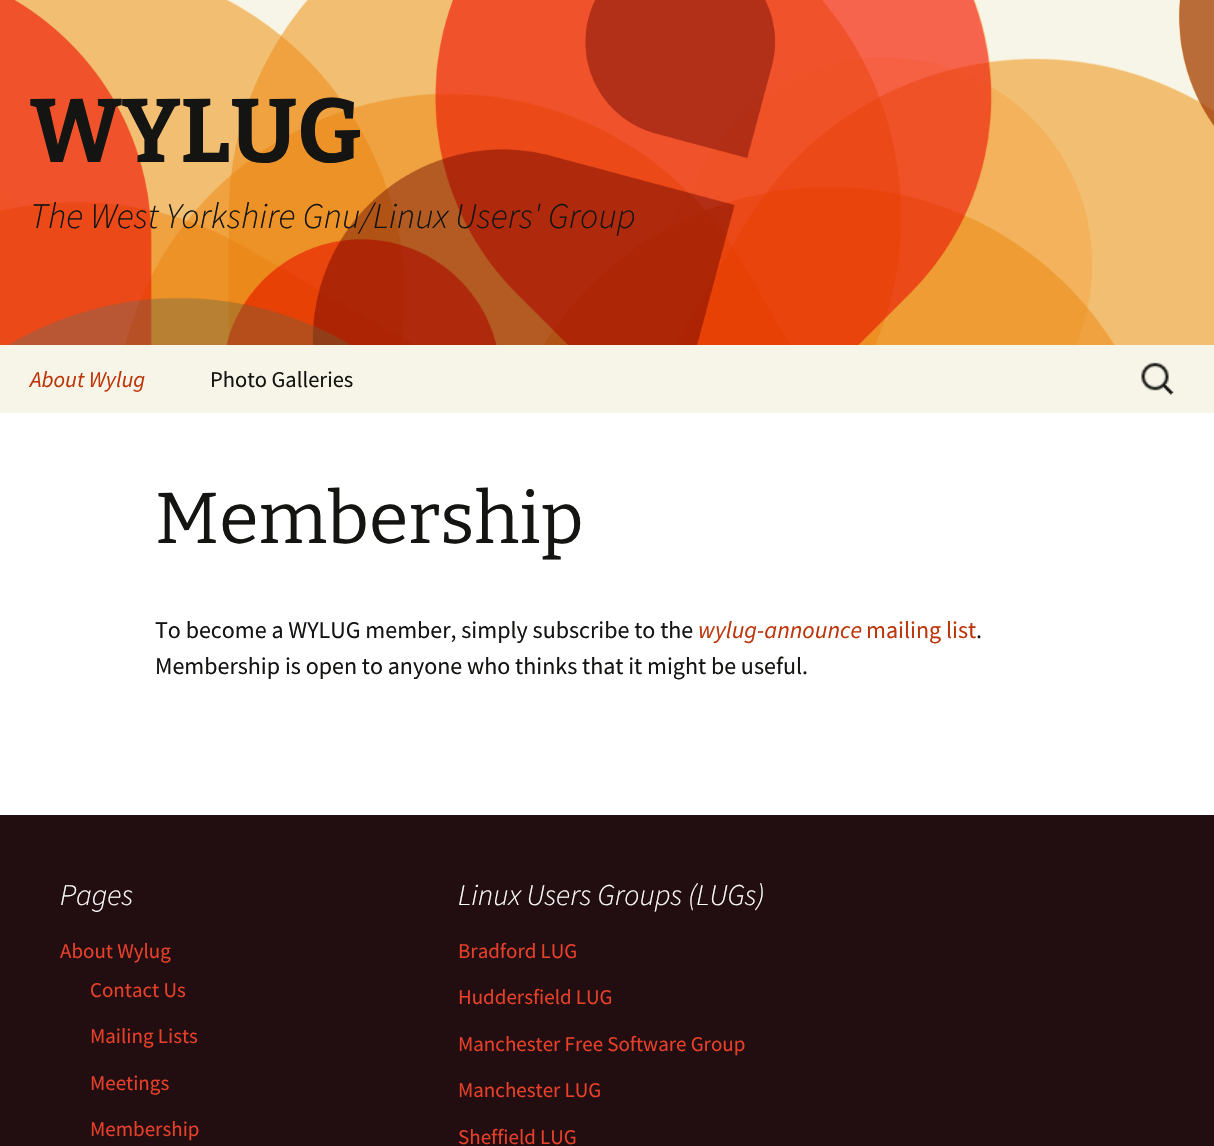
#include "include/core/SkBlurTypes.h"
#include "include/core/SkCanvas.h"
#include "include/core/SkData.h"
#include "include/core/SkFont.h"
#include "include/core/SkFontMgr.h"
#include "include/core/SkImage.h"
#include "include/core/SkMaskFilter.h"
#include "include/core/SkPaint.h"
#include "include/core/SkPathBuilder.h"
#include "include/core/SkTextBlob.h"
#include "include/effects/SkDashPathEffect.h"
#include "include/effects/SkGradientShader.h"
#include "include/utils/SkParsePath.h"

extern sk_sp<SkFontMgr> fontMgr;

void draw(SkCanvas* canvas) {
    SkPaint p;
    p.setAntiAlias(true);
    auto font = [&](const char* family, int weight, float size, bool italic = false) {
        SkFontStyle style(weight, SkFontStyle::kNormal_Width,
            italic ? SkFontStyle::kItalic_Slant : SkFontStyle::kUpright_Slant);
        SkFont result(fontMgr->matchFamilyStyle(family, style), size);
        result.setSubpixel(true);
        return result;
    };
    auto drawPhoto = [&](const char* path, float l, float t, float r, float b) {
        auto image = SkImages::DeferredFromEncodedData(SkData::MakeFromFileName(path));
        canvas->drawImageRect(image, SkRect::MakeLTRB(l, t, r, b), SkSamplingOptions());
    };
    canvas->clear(0xFFFFFFFF);
    drawPhoto("media/1.png", 0, 0, 1214, 345);
    auto font1 = font("Bitter", 700, 90);
    p.setColor(0xFF141412);
    canvas->drawString("WYLUG", 30, 162, font1, p);
    auto font2 = font("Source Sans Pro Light", 300, 36, true);
    canvas->drawString("The West Yorkshire Gnu/Linux Users' Group", 30, 228, font2, p);
    p.setColor(0xFFF7F5E7);
    canvas->drawRect(SkRect::MakeLTRB(0, 345, 1214, 413), p);
    auto font3 = font("Source Sans Pro", 400, 22.5f, true);
    p.setColor(0xFFBC360A);
    canvas->drawString("About Wylug", 30, 387, font3, p);
    auto font4 = font("Source Sans Pro", 400, 22.5f);
    p.setColor(0xFF141412);
    canvas->drawString("Photo Galleries", 210, 387, font4, p);
    drawPhoto("media/2.png", 1141, 362, 1174, 395);
    auto font5 = font("Bitter", 400, 72);
    canvas->drawString("Membership", 155, 543, font5, p);
    auto font6 = font("Source Sans Pro", 400, 24);
    canvas->drawString("To become a WYLUG member, simply subscribe to the", 155, 638, font6, p);
    auto font7 = font("Source Sans Pro", 400, 24, true);
    p.setColor(0xFFBC360A);
    canvas->drawString("wylug-announce", 698, 638, font7, p);
    canvas->drawString("mailing list", 866, 638, font6, p);
    p.setColor(0xFF141412);
    canvas->drawString(".", 976, 638, font6, p);
    canvas->drawString("Membership is open to anyone who thinks that it might be useful.", 155, 674, font6, p);
    p.setColor(0xFF220E10);
    canvas->drawRect(SkRect::MakeLTRB(0, 815, 1214, 1146), p);
    auto font8 = font("Source Sans Pro Light", 300, 30, true);
    p.setColor(0xFFFFFFFF);
    canvas->drawString("Pages", 60, 905, font8, p);
    auto font9 = font("Source Sans Pro", 400, 21);
    p.setColor(0xFFE6402A);
    {
        const struct { const char* s; float x, y; } items[] = {
            {"About Wylug", 60, 958},
            {"Contact Us", 90, 997},
            {"Mailing Lists", 90, 1043},
            {"Meetings", 90, 1090},
            {"Membership", 90, 1136},
        };
        for (auto [s, x, y] : items) {
            canvas->drawString(s, x, y, font9, p);
        }
    }
    p.setColor(0xFFFFFFFF);
    canvas->drawString("Linux Users Groups (LUGs)", 458, 905, font8, p);
    p.setColor(0xFFE6402A);
    {
        const struct { const char* s; float x, y; } items[] = {
            {"Bradford LUG", 458, 958},
            {"Huddersfield LUG", 458, 1004},
            {"Manchester Free Software Group", 458, 1051},
            {"Manchester LUG", 458, 1097},
            {"Sheffield LUG", 458, 1144},
        };
        for (auto [s, x, y] : items) {
            canvas->drawString(s, x, y, font9, p);
        }
    }
}
